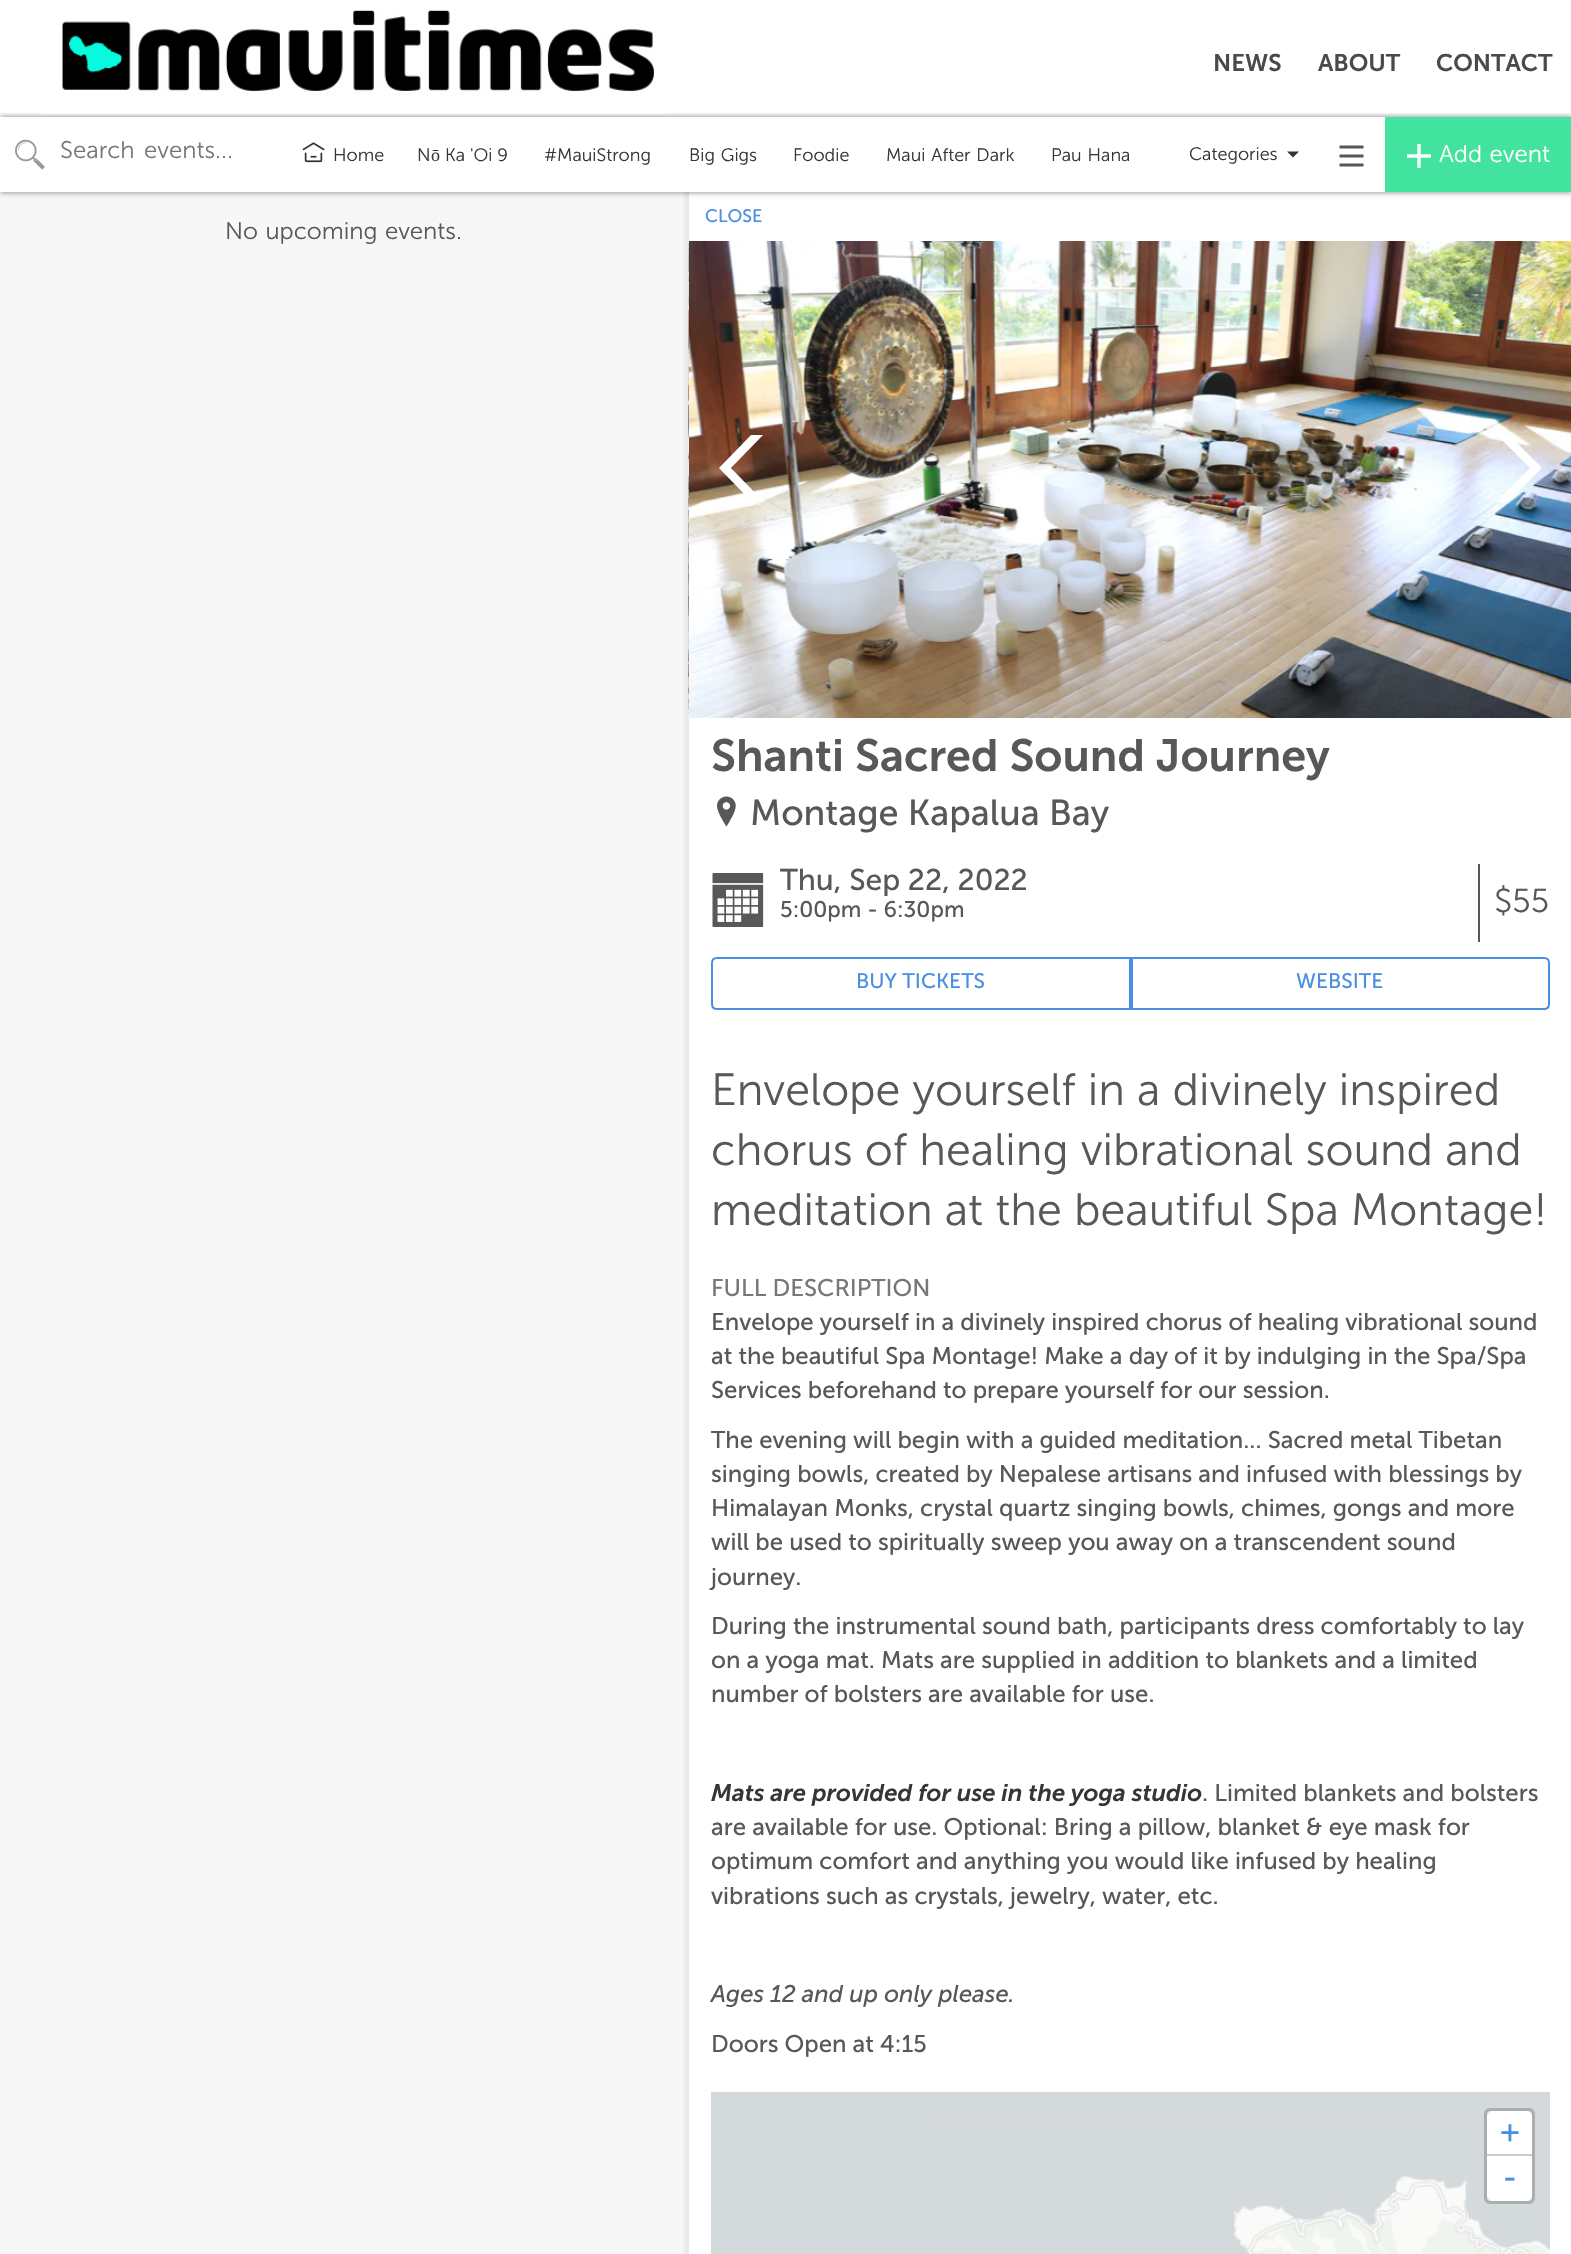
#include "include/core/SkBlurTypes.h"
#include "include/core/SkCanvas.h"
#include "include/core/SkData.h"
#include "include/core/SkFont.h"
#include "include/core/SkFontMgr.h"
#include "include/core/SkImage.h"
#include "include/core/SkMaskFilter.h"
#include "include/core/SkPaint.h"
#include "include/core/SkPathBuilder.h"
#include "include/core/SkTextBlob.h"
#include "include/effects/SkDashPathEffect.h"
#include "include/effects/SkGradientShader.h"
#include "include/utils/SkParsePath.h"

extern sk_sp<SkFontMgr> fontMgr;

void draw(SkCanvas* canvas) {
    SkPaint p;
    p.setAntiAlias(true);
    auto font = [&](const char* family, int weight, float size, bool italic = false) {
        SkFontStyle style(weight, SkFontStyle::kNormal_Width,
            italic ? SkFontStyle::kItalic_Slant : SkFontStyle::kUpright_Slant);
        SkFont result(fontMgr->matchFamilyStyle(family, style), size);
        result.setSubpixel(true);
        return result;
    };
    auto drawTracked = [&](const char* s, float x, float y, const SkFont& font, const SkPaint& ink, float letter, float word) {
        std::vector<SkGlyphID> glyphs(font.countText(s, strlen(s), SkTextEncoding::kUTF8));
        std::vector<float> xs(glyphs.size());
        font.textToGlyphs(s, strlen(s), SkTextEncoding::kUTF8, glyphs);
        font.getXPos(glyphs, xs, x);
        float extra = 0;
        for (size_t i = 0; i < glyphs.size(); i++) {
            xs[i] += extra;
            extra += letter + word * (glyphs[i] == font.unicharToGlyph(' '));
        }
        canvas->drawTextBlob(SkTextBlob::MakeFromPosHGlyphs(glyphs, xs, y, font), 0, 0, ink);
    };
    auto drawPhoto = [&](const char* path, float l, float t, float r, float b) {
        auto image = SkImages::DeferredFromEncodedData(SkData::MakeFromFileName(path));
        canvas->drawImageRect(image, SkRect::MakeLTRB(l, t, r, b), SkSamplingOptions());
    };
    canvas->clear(0xFFFFFFFF);
    p.setColor(0xFFF7F7F7);
    canvas->drawRect(SkRect::MakeLTRB(0, 192, 687, 2254), p);
    canvas->save();
    canvas->clipRect(SkRect::MakeLTRB(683, 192, 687, 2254));
    p.setColor(0x0F000000);
    p.setMaskFilter(SkMaskFilter::MakeBlur(kNormal_SkBlurStyle, 3));
    canvas->drawRect(SkRect::MakeLTRB(684, 186, 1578, 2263), p);
    p.setMaskFilter(nullptr);
    canvas->restore();
    p.setColor(0xFFE8E9EA);
    canvas->drawRect(SkRect::MakeLTRB(687, 188, 689, 2254), p);
    p.setColor(0x80000000);
    p.setMaskFilter(SkMaskFilter::MakeBlur(kNormal_SkBlurStyle, 3));
    canvas->drawRect(SkRect::MakeLTRB(0, 117, 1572, 192), p);
    p.setMaskFilter(nullptr);
    p.setColor(0xFFFFFFFF);
    canvas->drawRoundRect(SkRect::MakeLTRB(0, -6, 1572, 113), 6, 6, p);
    drawPhoto("media/1.png", 42, 10, 669, 114);
    auto font1 = font("Museo Sans", 600, 24);
    p.setColor(0xFF4A4A4A);
    {
        const struct { const char* s; float x, y; } items[] = {
            {"NEWS", 1213, 71},
            {"ABOUT", 1318, 71},
            {"CONTACT", 1436, 71},
        };
        for (auto [s, x, y] : items) {
            canvas->drawString(s, x, y, font1, p);
        }
    }
    p.setColor(0xFFFFFFFF);
    canvas->drawRect(SkRect::MakeLTRB(0, 117, 1385, 192), p);
    drawPhoto("media/2.png", 15, 139, 45, 170);
    auto font2 = font("Museo Sans", 300, 24);
    p.setColor(0xFF777777);
    drawTracked("Search events...", 60, 158, font2, p, 0, 3);
    drawPhoto("media/3.png", 302, 142, 325, 163);
    auto font3 = font("Museo Sans", 300, 18);
    p.setColor(0xFF363636);
    canvas->drawString("Home", 333, 161, font3, p);
    canvas->drawString("N", 417, 161, font3, p);
    auto font4 = font("Liberation Serif", 400, 18);
    canvas->drawString("ō", 431, 161, font4, p);
    canvas->drawString("Ka 'Oi 9", 445, 161, font3, p);
    canvas->drawString("#MauiStrong", 544, 161, font3, p);
    drawTracked("Big Gigs", 689, 161, font3, p, 0, 1);
    canvas->drawString("Foodie", 793, 161, font3, p);
    drawTracked("Maui After Dark", 886, 161, font3, p, 0, 1);
    drawTracked("Pau Hana", 1051, 161, font3, p, 0, 1);
    canvas->drawString("Categories", 1189, 160, font3, p);
    p.setColor(0xFF333333);
    canvas->drawPath(SkPathBuilder().moveTo(1287, 151.5f).lineTo(1299, 151.5f).lineTo(1293, 157.5f).close().detach(), p);
    drawPhoto("media/4.png", 1339, 145, 1364, 167);
    p.setColor(0xFF42E39E);
    canvas->drawRect(SkRect::MakeLTRB(1385, 117, 1571, 192), p);
    drawPhoto("media/5.png", 1407, 144, 1431, 168);
    p.setColor(0xFFFFFFFF);
    drawTracked("Add event", 1439, 162, font2, p, 0, 1);
    p.setColor(0xFF575858);
    drawTracked("No upcoming events.", 225, 239, font2, p, 0, 1);
    auto font5 = font("Museo Sans", 400, 18);
    p.setColor(0xFF4A90E2);
    canvas->drawString("CLOSE", 705, 222, font5, p);
    drawPhoto("media/6.png", 688, 241, 689, 718);
    drawPhoto("media/7.png", 689, 241, 1571, 718);
    canvas->save();
    canvas->clipRect(SkRect::MakeLTRB(704, 435, 771, 503));
    p.setColor(0xFFFFFFFF);
    canvas->drawPath(SkPathBuilder().moveTo(752, 434).lineTo(719, 468).lineTo(752, 502).lineTo(764, 502).lineTo(731, 468).lineTo(764, 434).close().detach(), p);
    canvas->restore();
    canvas->save();
    canvas->clipRect(SkRect::MakeLTRB(1490, 435, 1557, 503));
    canvas->drawPath(SkPathBuilder().moveTo(1496, 434).lineTo(1530, 468).lineTo(1496, 502).lineTo(1508, 502).lineTo(1542, 468).lineTo(1508, 434).close().detach(), p);
    canvas->restore();
    auto font6 = font("Museo Sans", 600, 45);
    p.setColor(0xFF575858);
    canvas->drawString("Shanti Sacred Sound Journey", 711, 771, font6, p);
    drawPhoto("media/8.png", 717, 796, 736, 827);
    auto font7 = font("Museo Sans", 400, 36);
    canvas->drawString("Montage Kapalua Bay", 750, 825, font7, p);
    drawPhoto("media/9.png", 712, 873, 764, 927);
    auto font8 = font("Museo Sans", 400, 30);
    canvas->drawString("Thu, Sep 22, 2022", 780, 890, font8, p);
    auto font9 = font("Museo Sans", 400, 22.5f);
    canvas->drawString("5:00pm - 6:30pm", 780, 917, font9, p);
    canvas->drawRect(SkRect::MakeLTRB(1478, 864, 1480, 942), p);
    auto font10 = font("Museo Sans", 300, 33);
    canvas->drawString("$55", 1494, 912, font10, p);
    p.setStyle(SkPaint::kStroke_Style);
    p.setStrokeWidth(2);
    p.setColor(0xFF4A90E2);
    canvas->drawPath(SkPathBuilder().moveTo(717, 958).lineTo(1130, 958).lineTo(1130, 1009).lineTo(717, 1009).cubicTo(714, 1009, 712, 1007, 712, 1004).lineTo(712, 963).cubicTo(712, 960, 714, 958, 717, 958).close().detach(), p);
    auto font11 = font("Museo Sans", 400, 21);
    p.setStyle(SkPaint::kFill_Style);
    canvas->drawString("BUY TICKETS", 856, 988, font11, p);
    p.setStyle(SkPaint::kStroke_Style);
    canvas->drawPath(SkPathBuilder().moveTo(1132, 958).lineTo(1544, 958).cubicTo(1547, 958, 1549, 960, 1549, 963).lineTo(1549, 1004).cubicTo(1549, 1007, 1547, 1009, 1544, 1009).lineTo(1132, 1009).close().detach(), p);
    p.setStyle(SkPaint::kFill_Style);
    canvas->drawString("WEBSITE", 1296, 988, font11, p);
    auto font12 = font("Museo Sans", 300, 45);
    p.setColor(0xFF575858);
    {
        const struct { const char* s; float x, y; } items[] = {
            {"Envelope yourself in a divinely inspired", 711, 1105},
            {"chorus of healing vibrational sound and", 711, 1165},
            {"meditation at the beautiful Spa Montage!", 711, 1225},
        };
        for (auto [s, x, y] : items) {
            canvas->drawString(s, x, y, font12, p);
        }
    }
    auto font13 = font("Museo Sans", 400, 24);
    p.setColor(0xFF777777);
    canvas->drawString("FULL DESCRIPTION", 711, 1296, font13, p);
    p.setColor(0xFF575858);
    {
        const struct { const char* s; float x, y; } items[] = {
            {"Envelope yourself in a divinely inspired chorus of healing vibrational sound", 711, 1330},
            {"at the beautiful Spa Montage! Make a day of it by indulging in the Spa/Spa", 711, 1364},
            {"Services beforehand to prepare yourself for our session.", 711, 1398},
            {"The evening will begin with a guided meditation... Sacred metal Tibetan", 711, 1448},
            {"singing bowls, created by Nepalese artisans and infused with blessings by", 711, 1482},
            {"Himalayan Monks, crystal quartz singing bowls, chimes, gongs and more", 711, 1516},
            {"will be used to spiritually sweep you away on a transcendent sound", 711, 1550},
            {"journey.", 711, 1585},
            {"During the instrumental sound bath, participants dress comfortably to lay", 711, 1634},
            {"on a yoga mat. Mats are supplied in addition to blankets and a limited", 711, 1668},
            {"number of bolsters are available for use.", 711, 1702},
        };
        for (auto [s, x, y] : items) {
            canvas->drawString(s, x, y, font13, p);
        }
    }
    auto font14 = font("Museo Sans", 600, 24, true);
    p.setColor(0xFF363636);
    canvas->drawString("Mats are provided for use in the yoga studio", 711, 1801, font14, p);
    p.setColor(0xFF575858);
    {
        const struct { const char* s; float x, y; } items[] = {
            {". Limited blankets and bolsters", 1202, 1801},
            {"are available for use. Optional: Bring a pillow, blanket & eye mask for", 711, 1835},
            {"optimum comfort and anything you would like infused by healing", 711, 1869},
            {"vibrations such as crystals, jewelry, water, etc.", 711, 1904},
        };
        for (auto [s, x, y] : items) {
            canvas->drawString(s, x, y, font13, p);
        }
    }
    auto font15 = font("Museo Sans", 400, 24, true);
    canvas->drawString("Ages 12 and up only please.", 711, 2002, font15, p);
    canvas->drawString("Doors Open at 4:15", 711, 2052, font13, p);
    {
        const struct { float l, t, r, b; SkColor color; } items[] = {
            {939, 2120, 1550, 2121, 0xFFDDDDDD},
            {711, 2092, 939, 2254, 0xFFD4DADC},
            {939, 2092, 1550, 2120, 0xFFD4DADC},
        };
        for (auto [l, t, r, b, color] : items) {
            p.setColor(color);
            canvas->drawRect(SkRect::MakeLTRB(l, t, r, b), p);
        }
    }
    drawPhoto("media/10.png", 939, 2120, 1323, 2254);
    drawPhoto("media/11.png", 1323, 2120, 1550, 2254);
    p.setStyle(SkPaint::kStroke_Style);
    p.setStrokeWidth(3);
    p.setColor(0x33000000);
    canvas->drawRoundRect(SkRect::MakeLTRB(1485.5f, 2109.5f, 1533.5f, 2202.5f), 4.5f, 4.5f, p);
    p.setStyle(SkPaint::kFill_Style);
    p.setColor(0xFFFFFFFF);
    canvas->drawPath(SkPathBuilder().moveTo(1493, 2111).lineTo(1526, 2111).cubicTo(1529.5f, 2111, 1532, 2113.5f, 1532, 2117).lineTo(1532, 2156).lineTo(1487, 2156).lineTo(1487, 2117).cubicTo(1487, 2113.5f, 1489.5f, 2111, 1493, 2111).close().detach(), p);
    p.setColor(0xFFCCCCCC);
    canvas->drawRect(SkRect::MakeLTRB(1487, 2154, 1532, 2156), p);
    auto font16 = font("DejaVu Sans Mono", 400, 33);
    p.setColor(0xFF4A90E2);
    canvas->drawString("+", 1500, 2143, font16, p);
    p.setColor(0xFFFFFFFF);
    canvas->drawPath(SkPathBuilder().moveTo(1487, 2156).lineTo(1532, 2156).lineTo(1532, 2195).cubicTo(1532, 2198.5f, 1529.5f, 2201, 1526, 2201).lineTo(1493, 2201).cubicTo(1489.5f, 2201, 1487, 2198.5f, 1487, 2195).close().detach(), p);
    auto font17 = font("DejaVu Sans Mono", 400, 36);
    p.setColor(0xFF4A90E2);
    canvas->drawString("-", 1499, 2189, font17, p);
}
